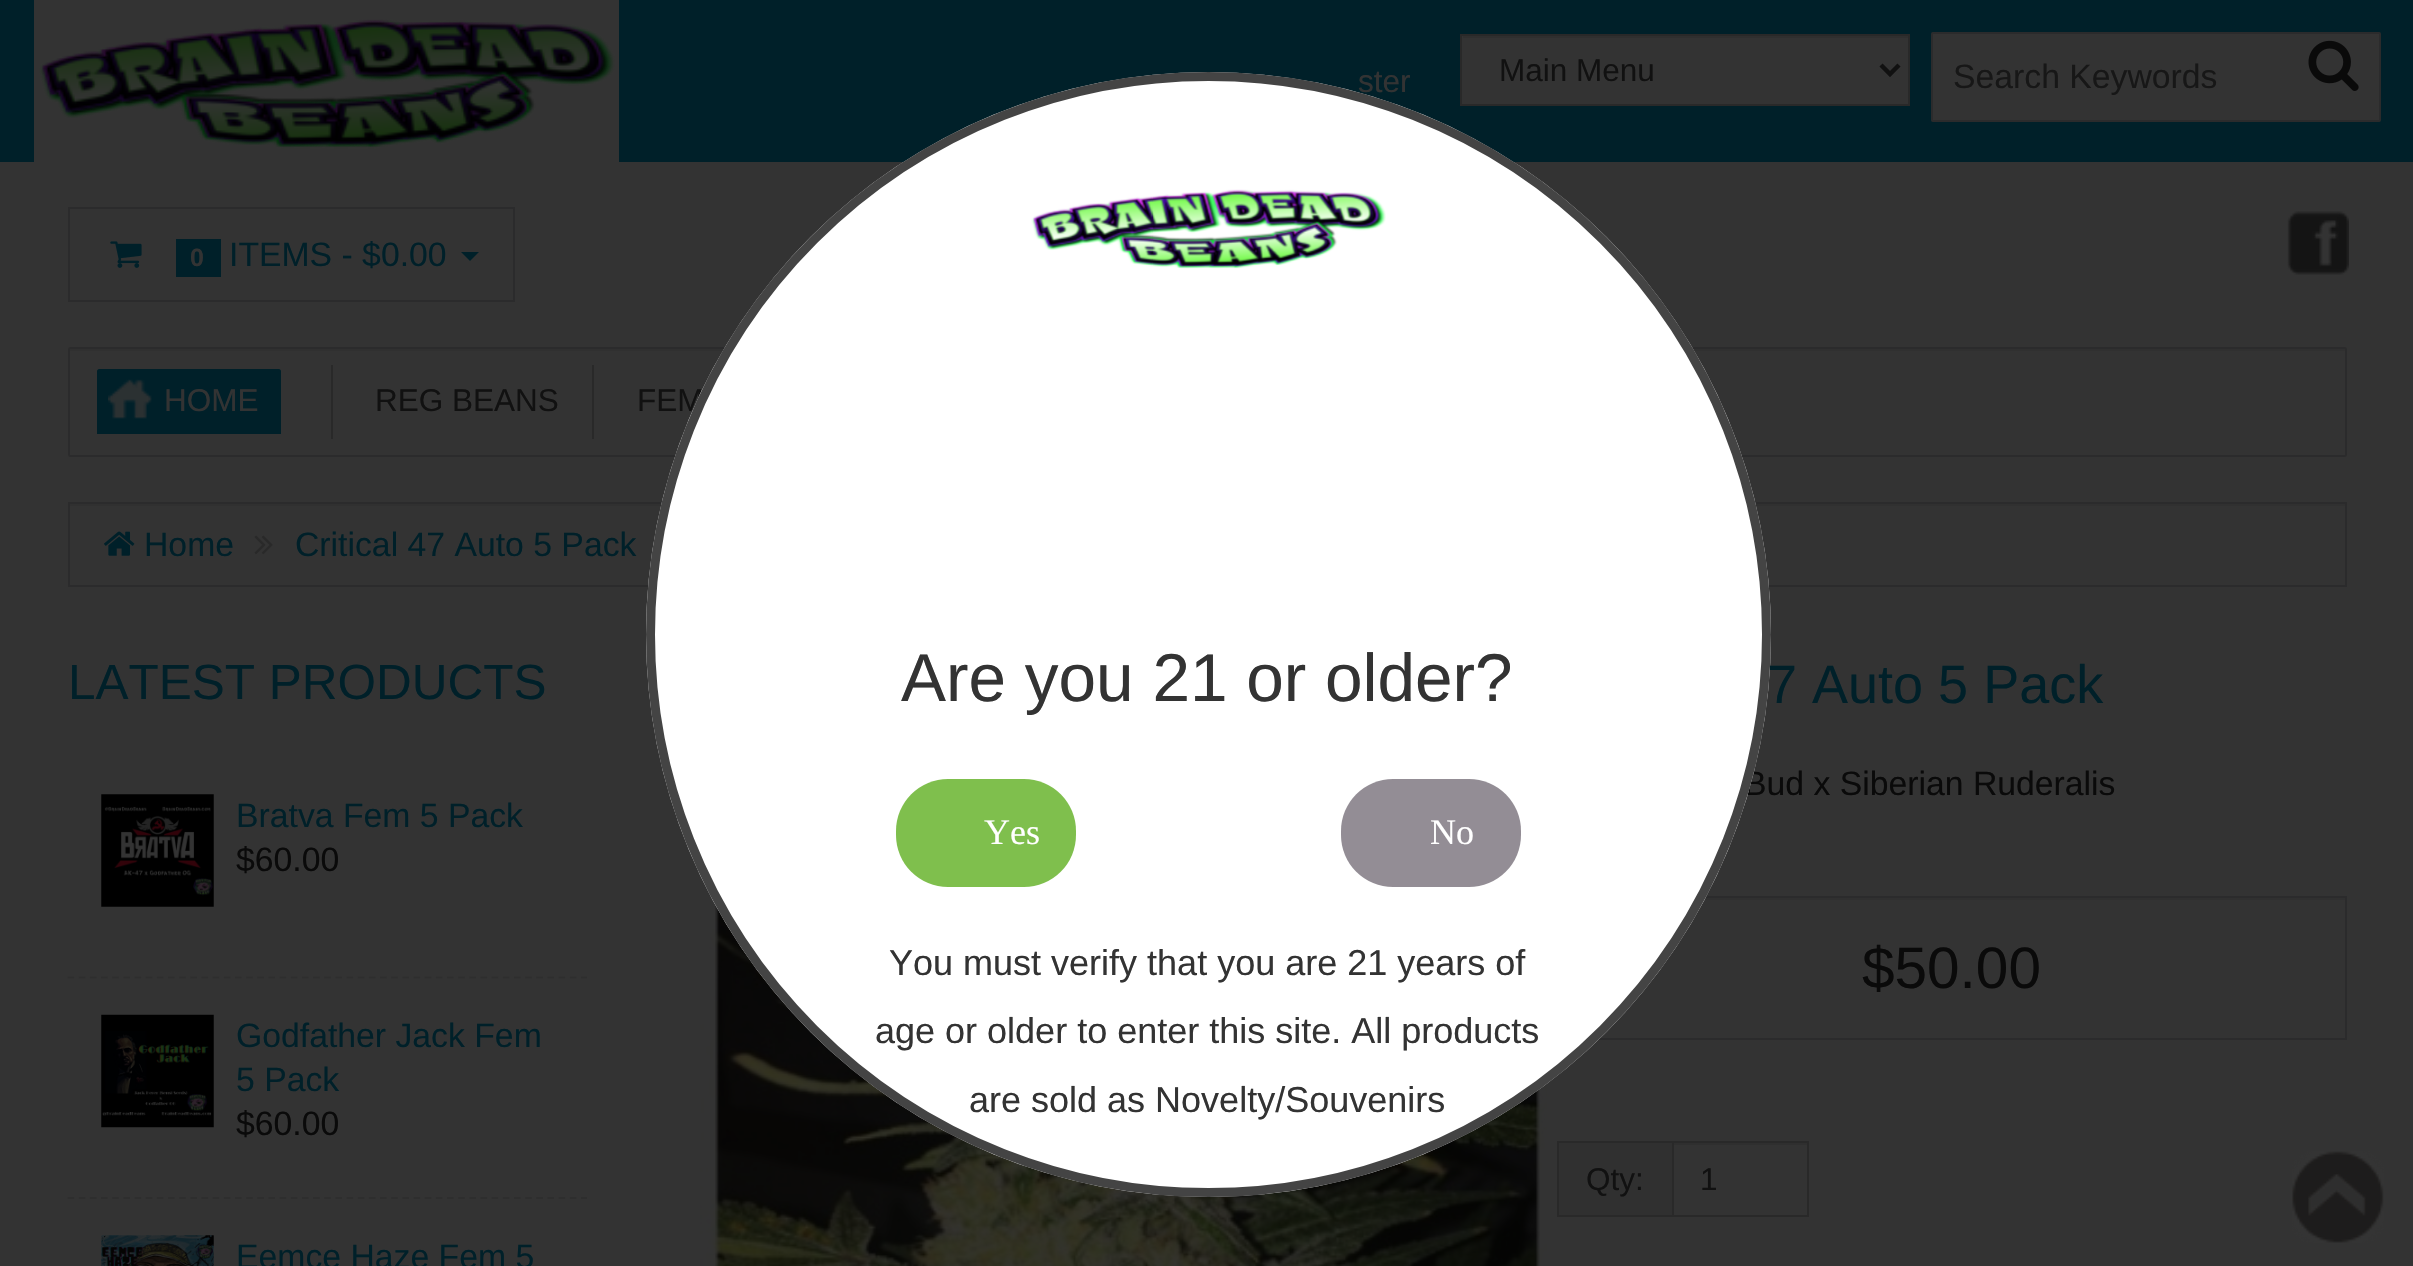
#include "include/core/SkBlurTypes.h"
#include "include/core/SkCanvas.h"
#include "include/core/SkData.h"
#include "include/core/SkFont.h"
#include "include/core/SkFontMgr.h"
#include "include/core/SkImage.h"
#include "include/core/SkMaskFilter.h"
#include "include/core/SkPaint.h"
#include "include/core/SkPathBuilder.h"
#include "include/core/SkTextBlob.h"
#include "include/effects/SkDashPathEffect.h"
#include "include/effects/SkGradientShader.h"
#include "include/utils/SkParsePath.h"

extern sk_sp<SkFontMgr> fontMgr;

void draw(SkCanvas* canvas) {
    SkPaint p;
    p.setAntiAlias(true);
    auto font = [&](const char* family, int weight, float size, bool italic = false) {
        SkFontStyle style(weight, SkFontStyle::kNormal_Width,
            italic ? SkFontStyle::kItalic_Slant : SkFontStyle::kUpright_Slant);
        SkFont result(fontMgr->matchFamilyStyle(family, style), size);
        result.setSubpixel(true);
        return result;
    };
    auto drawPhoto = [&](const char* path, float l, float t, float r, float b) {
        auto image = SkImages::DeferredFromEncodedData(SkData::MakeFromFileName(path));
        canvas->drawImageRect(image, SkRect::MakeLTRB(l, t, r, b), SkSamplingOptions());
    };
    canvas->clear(0xFF333333);
    p.setColor(0xFF002029);
    canvas->drawRect(SkRect::MakeLTRB(0, 0, 2413, 162), p);
    p.setColor(0xFF333333);
    canvas->drawRect(SkRect::MakeLTRB(34, 0, 619, 162), p);
    drawPhoto("media/1.png", 39, 19, 615, 149);
    auto font1 = font("Liberation Sans", 400, 31.5f);
    canvas->drawString("ster", 1358, 92, font1, p);
    canvas->drawRect(SkRect::MakeLTRB(1462, 36, 1908, 104), p);
    p.setColor(0xFF2F2F2F);
    canvas->drawRect(SkRect::MakeLTRB(1463, 36, 1908, 38), p);
    p.setStyle(SkPaint::kStroke_Style);
    p.setStrokeWidth(2);
    p.setColor(0xFF292929);
    canvas->drawRect(SkRect::MakeLTRB(1461, 35, 1909, 105), p);
    p.setStrokeWidth(4.5f);
    p.setColor(0xFF111111);
    canvas->drawPath(SkPathBuilder().moveTo(1881, 65).lineTo(1890, 74).lineTo(1899, 65).detach(), p);
    p.setStyle(SkPaint::kFill_Style);
    canvas->drawString("Main Menu", 1499, 81, font1, p);
    p.setColor(0xFF333333);
    canvas->drawRoundRect(SkRect::MakeLTRB(1932, 33, 2380, 121), 1, 1, p);
    p.setStyle(SkPaint::kStroke_Style);
    p.setStrokeWidth(2);
    p.setColor(0xFF2B2B2C);
    canvas->drawRoundRect(SkRect::MakeLTRB(1932, 33, 2380, 121), 1, 1, p);
    auto font2 = font("Liberation Sans", 400, 33.75f);
    p.setStyle(SkPaint::kFill_Style);
    p.setColor(0xFF171717);
    canvas->drawString("Search Keywords", 1953, 88, font2, p);
    drawPhoto("media/2.png", 2308, 40, 2359, 91);
    p.setStyle(SkPaint::kStroke_Style);
    p.setColor(0xFF2B2B2C);
    canvas->drawRect(SkRect::MakeLTRB(69, 208, 514, 301), p);
    drawPhoto("media/3.png", 110, 241, 142, 268);
    p.setStyle(SkPaint::kFill_Style);
    p.setColor(0xFF002029);
    canvas->drawRect(SkRect::MakeLTRB(176, 239, 221, 277), p);
    auto font3 = font("Liberation Sans", 700, 25);
    p.setColor(0xFF333333);
    canvas->drawString("0", 190, 266, font3, p);
    p.setColor(0xFF002029);
    canvas->drawString("ITEMS - $0.00", 229, 266, font2, p);
    canvas->drawPath(SkPathBuilder().moveTo(461, 252).lineTo(479, 252).lineTo(470, 261).close().detach(), p);
    drawPhoto("media/4.png", 2287, 211, 2349, 275);
    p.setColor(0xFF303030);
    canvas->drawRect(SkRect::MakeLTRB(70, 349, 2345, 351), p);
    p.setStyle(SkPaint::kStroke_Style);
    p.setColor(0xFF2B2B2C);
    canvas->drawRoundRect(SkRect::MakeLTRB(69, 348, 2346, 456), 1, 1, p);
    p.setStyle(SkPaint::kFill_Style);
    p.setColor(0xFF292929);
    canvas->drawRect(SkRect::MakeLTRB(331, 365, 333, 439), p);
    p.setColor(0xFF002029);
    canvas->drawPath(SkPathBuilder().moveTo(99, 369).lineTo(279, 369).cubicTo(280, 369, 281, 370, 281, 371).lineTo(281, 434).lineTo(97, 434).lineTo(97, 371).cubicTo(97, 370, 98, 369, 99, 369).close().detach(), p);
    drawPhoto("media/5.png", 108, 379, 152, 419);
    p.setColor(0xFF333333);
    canvas->drawString("HOME", 164, 411, font1, p);
    p.setColor(0xFF292929);
    canvas->drawRect(SkRect::MakeLTRB(592, 365, 594, 439), p);
    p.setColor(0xFF111111);
    canvas->drawString("REG BEANS", 375, 411, font1, p);
    canvas->drawString("FEM", 637, 411, font1, p);
    p.setColor(0xFF303030);
    canvas->drawRect(SkRect::MakeLTRB(70, 504, 2345, 506), p);
    p.setStyle(SkPaint::kStroke_Style);
    p.setColor(0xFF2B2B2C);
    canvas->drawRect(SkRect::MakeLTRB(69, 503, 2346, 586), p);
    drawPhoto("media/6.png", 104, 531, 135, 556);
    p.setStyle(SkPaint::kFill_Style);
    p.setColor(0xFF002029);
    canvas->drawString("Home", 144, 556, font2, p);
    drawPhoto("media/7.png", 254, 535, 273, 555);
    canvas->drawString("Critical 47 Auto 5 Pack", 295, 556, font2, p);
    auto font4 = font("Liberation Sans", 400, 49.5f);
    canvas->drawString("LATEST PRODUCTS", 68, 699, font4, p);
    p.setStyle(SkPaint::kStroke_Style);
    p.setStrokeWidth(2.2f);
    p.setColor(0xFF2E2E2E);
    p.setPathEffect(SkDashPathEffect::Make({{6.75f, 4.41f}}, 0));
    canvas->drawPath(SkPathBuilder().moveTo(67.5f, 977.5f).lineTo(587, 977.5f).detach(), p);
    p.setPathEffect(nullptr);
    drawPhoto("media/8.png", 101, 794, 214, 907);
    p.setStyle(SkPaint::kFill_Style);
    p.setColor(0xFF002029);
    canvas->drawString("Bratva Fem 5 Pack", 236, 827, font2, p);
    p.setColor(0xFF0A0A0A);
    canvas->drawString("$60.00", 236, 871, font2, p);
    p.setStyle(SkPaint::kStroke_Style);
    p.setColor(0xFF2E2E2E);
    p.setPathEffect(SkDashPathEffect::Make({{6.75f, 4.41f}}, 0));
    canvas->drawPath(SkPathBuilder().moveTo(67.5f, 1198).lineTo(587, 1198).detach(), p);
    p.setPathEffect(nullptr);
    drawPhoto("media/9.png", 101, 1014, 214, 1128);
    p.setStyle(SkPaint::kFill_Style);
    p.setColor(0xFF002029);
    canvas->drawString("Godfather Jack Fem", 236, 1047, font2, p);
    canvas->drawString("5 Pack", 236, 1091, font2, p);
    p.setColor(0xFF0A0A0A);
    canvas->drawString("$60.00", 236, 1135, font2, p);
    drawPhoto("media/10.png", 101, 1235, 214, 1266);
    p.setColor(0xFF002029);
    canvas->drawString("Eemce Haze Fem 5", 236, 1268, font2, p);
    drawPhoto("media/11.png", 700, 875, 1547, 1266);
    auto font5 = font("Liberation Sans", 400, 54);
    canvas->drawString("7 Auto 5 Pack", 1767, 703, font5, p);
    p.setColor(0xFF0A0A0A);
    canvas->drawString("Bud x Siberian Ruderalis", 1744, 795, font2, p);
    p.setColor(0xFF303030);
    canvas->drawRect(SkRect::MakeLTRB(1704, 898, 2345, 900), p);
    p.setStyle(SkPaint::kStroke_Style);
    p.setStrokeWidth(2);
    p.setColor(0xFF2B2B2C);
    canvas->drawRect(SkRect::MakeLTRB(1558, 897, 2346, 1039), p);
    auto font6 = font("Liberation Sans", 400, 58.5f);
    p.setStyle(SkPaint::kFill_Style);
    p.setColor(0xFF0A0A0A);
    canvas->drawString("$50.00", 1862, 988, font6, p);
    {
        const struct { float l, t, r, b; SkColor color; } items[] = {
            {1559, 1143, 1672, 1215, 0xFF303030},
            {1557, 1141, 1672, 1143, 0xFF292929},
            {1557, 1215, 1672, 1217, 0xFF292929},
            {1557, 1141, 1559, 1217, 0xFF292929},
        };
        for (auto [l, t, r, b, color] : items) {
            p.setColor(color);
            canvas->drawRect(SkRect::MakeLTRB(l, t, r, b), p);
        }
    }
    p.setColor(0xFF111111);
    canvas->drawString("Qty:", 1586, 1190, font1, p);
    p.setColor(0xFF2F2F2F);
    canvas->drawRect(SkRect::MakeLTRB(1674, 1143, 1807, 1145), p);
    p.setStyle(SkPaint::kStroke_Style);
    p.setColor(0xFF292929);
    canvas->drawRect(SkRect::MakeLTRB(1673, 1142, 1808, 1216), p);
    p.setStyle(SkPaint::kFill_Style);
    p.setColor(0xFF111111);
    canvas->drawString("1", 1700, 1190, font1, p);
    drawPhoto("media/12.png", 2292, 1151, 2384, 1243);
    p.setColor(0xFFFFFFFF);
    canvas->drawCircle(1208.5f, 634.5f, 562.5f, p);
    drawPhoto("media/13.png", 1031, 189, 1386, 269);
    p.setStyle(SkPaint::kStroke_Style);
    p.setStrokeWidth(9);
    p.setColor(0xFF444444);
    canvas->drawCircle(1208.5f, 634.5f, 558, p);
    auto font7 = font("Liberation Sans", 400, 67.5f);
    p.setStyle(SkPaint::kFill_Style);
    p.setColor(0xFF333333);
    canvas->drawString("Are you 21 or older?", 901, 701, font7, p);
    p.setColor(0xFF7FBF4D);
    canvas->drawRoundRect(SkRect::MakeLTRB(896, 779, 1076, 887), 52, 52, p);
    auto font8 = font("Liberation Serif", 400, 36);
    p.setColor(0xFFFFFFFF);
    canvas->drawString("Yes", 984, 844, font8, p);
    p.setColor(0xFF938D95);
    canvas->drawRoundRect(SkRect::MakeLTRB(1341, 779, 1521, 887), 52, 52, p);
    p.setColor(0xFFFFFFFF);
    canvas->drawString("No", 1430, 844, font8, p);
    auto font9 = font("Liberation Sans", 400, 36);
    p.setColor(0xFF333333);
    {
        const struct { const char* s; float x, y; } items[] = {
            {"You must verify that you are 21 years of", 889, 975},
            {"age or older to enter this site. All products", 875, 1043},
            {"are sold as Novelty/Souvenirs", 969, 1112},
        };
        for (auto [s, x, y] : items) {
            canvas->drawString(s, x, y, font9, p);
        }
    }
}
